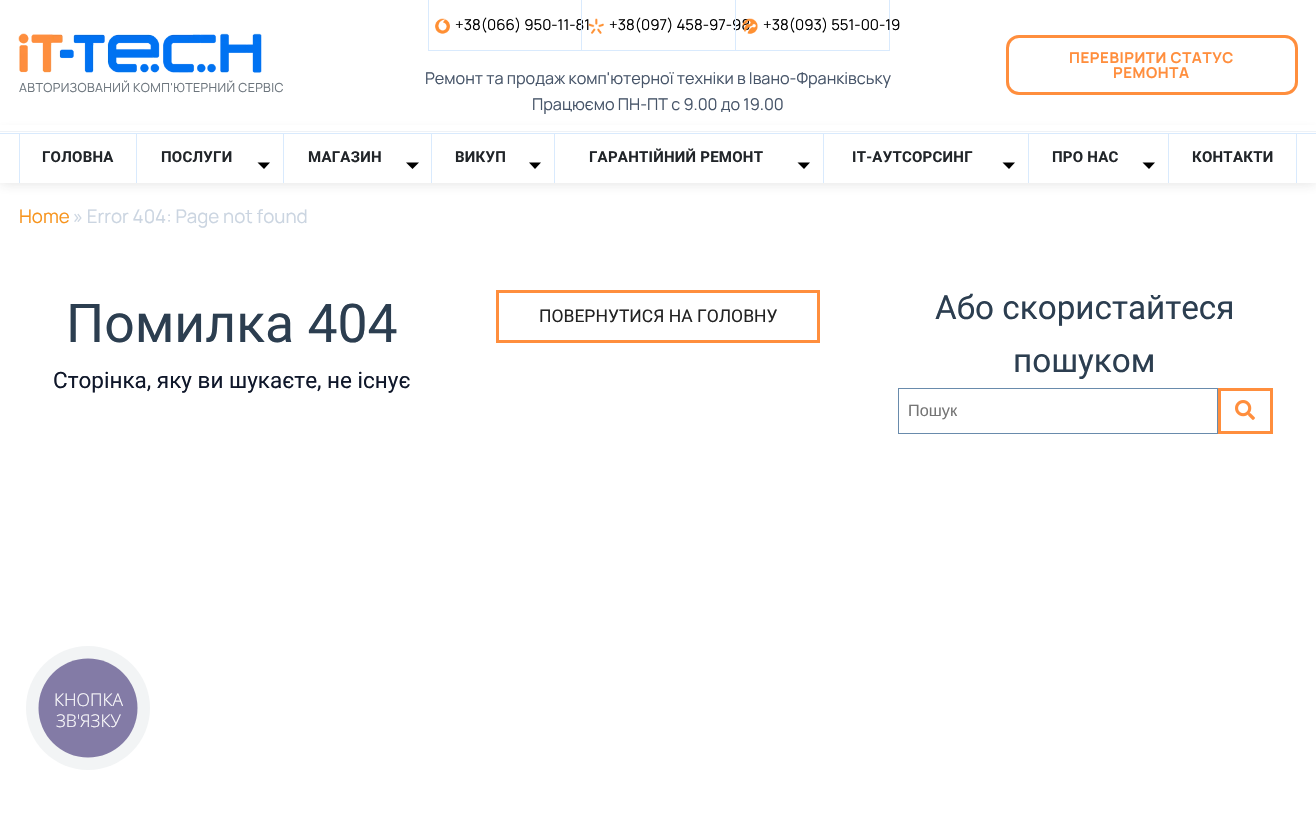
#include "include/core/SkBlurTypes.h"
#include "include/core/SkCanvas.h"
#include "include/core/SkData.h"
#include "include/core/SkFont.h"
#include "include/core/SkFontMgr.h"
#include "include/core/SkImage.h"
#include "include/core/SkMaskFilter.h"
#include "include/core/SkPaint.h"
#include "include/core/SkPathBuilder.h"
#include "include/core/SkTextBlob.h"
#include "include/effects/SkDashPathEffect.h"
#include "include/effects/SkGradientShader.h"
#include "include/utils/SkParsePath.h"

extern sk_sp<SkFontMgr> fontMgr;

void draw(SkCanvas* canvas) {
    SkPaint p;
    p.setAntiAlias(true);
    auto font = [&](const char* family, int weight, float size, bool italic = false) {
        SkFontStyle style(weight, SkFontStyle::kNormal_Width,
            italic ? SkFontStyle::kItalic_Slant : SkFontStyle::kUpright_Slant);
        SkFont result(fontMgr->matchFamilyStyle(family, style), size);
        result.setSubpixel(true);
        return result;
    };
    auto drawTracked = [&](const char* s, float x, float y, const SkFont& font, const SkPaint& ink, float letter, float word) {
        std::vector<SkGlyphID> glyphs(font.countText(s, strlen(s), SkTextEncoding::kUTF8));
        std::vector<float> xs(glyphs.size());
        font.textToGlyphs(s, strlen(s), SkTextEncoding::kUTF8, glyphs);
        font.getXPos(glyphs, xs, x);
        float extra = 0;
        for (size_t i = 0; i < glyphs.size(); i++) {
            xs[i] += extra;
            extra += letter + word * (glyphs[i] == font.unicharToGlyph(' '));
        }
        canvas->drawTextBlob(SkTextBlob::MakeFromPosHGlyphs(glyphs, xs, y, font), 0, 0, ink);
    };
    auto drawPhoto = [&](const char* path, float l, float t, float r, float b) {
        auto image = SkImages::DeferredFromEncodedData(SkData::MakeFromFileName(path));
        canvas->drawImageRect(image, SkRect::MakeLTRB(l, t, r, b), SkSamplingOptions());
    };
    canvas->clear(0xFFFFFFFF);
    p.setColor(0x26303030);
    p.setMaskFilter(SkMaskFilter::MakeBlur(kNormal_SkBlurStyle, 6));
    canvas->drawRect(SkRect::MakeLTRB(0, 133, 1316, 183), p);
    p.setMaskFilter(nullptr);
    {
        const struct { float l, t, r, b; SkColor color; } items[] = {
            {0, 125, 1316, 133, 0xFFFFFFFF},
            {0, 131, 1316, 132, 0xFFEEF2F7},
            {428, 50, 736, 51, 0xFFD9EAFD},
            {428, 0, 429, 51, 0xFFD9EAFD},
        };
        for (auto [l, t, r, b, color] : items) {
            p.setColor(color);
            canvas->drawRect(SkRect::MakeLTRB(l, t, r, b), p);
        }
    }
    drawPhoto("media/1.png", 435, 18, 450, 34);
    auto font1 = font("Manrope", 400, 15);
    p.setColor(0xFF000000);
    canvas->drawString("+38(066) 950-11-81", 455, 30, font1, p);
    p.setColor(0xFFD9EAFD);
    canvas->drawRect(SkRect::MakeLTRB(581, 0, 582, 51), p);
    drawPhoto("media/2.png", 588, 18, 604, 34);
    p.setColor(0xFF000000);
    canvas->drawString("+38(097) 458-97-98", 609, 30, font1, p);
    {
        const struct { float l, t, r, b; SkColor color; } items[] = {
            {889, 0, 890, 51, 0xFFD9EAFD},
            {735, 50, 890, 51, 0xFFD9EAFD},
            {735, 0, 736, 51, 0xFFD9EAFD},
        };
        for (auto [l, t, r, b, color] : items) {
            p.setColor(color);
            canvas->drawRect(SkRect::MakeLTRB(l, t, r, b), p);
        }
    }
    drawPhoto("media/3.png", 742, 18, 758, 34);
    p.setColor(0xFF000000);
    canvas->drawString("+38(093) 551-00-19", 763, 30, font1, p);
    auto font2 = font("Manrope", 400, 16.25f);
    p.setColor(0xFF475569);
    canvas->drawString("Ремонт та продаж комп'ютерної техніки в Івано-Франківську", 425, 84, font2, p);
    canvas->drawString("Працюємо ПН-ПТ с 9.00 до 19.00", 532, 110, font2, p);
    p.setStyle(SkPaint::kStroke_Style);
    p.setStrokeWidth(3);
    p.setColor(0xFFFF8E3D);
    canvas->drawRoundRect(SkRect::MakeLTRB(1007.5f, 36.5f, 1296.5f, 93.5f), 11.5f, 11.5f, p);
    auto font3 = font("Manrope", 700, 15);
    p.setStyle(SkPaint::kFill_Style);
    drawTracked("ПЕРЕВІРИТИ СТАТУС", 1069, 63, font3, p, 0.6f, 0);
    drawTracked("РЕМОНТА", 1113, 78, font3, p, 0.6f, 0);
    drawPhoto("media/4.png", 18, 33, 262, 73);
    auto font4 = font("Manrope", 400, 12.5f);
    p.setColor(0xFF6C757D);
    drawTracked("АВТОРИЗОВАНИЙ КОМП'ЮТЕРНИЙ СЕРВІС", 19, 92, font4, p, 0.4f, 0);
    {
        const struct { float l, t, r, b; SkColor color; } items[] = {
            {0, 134, 1316, 183, 0xFFFFFFFF},
            {0, 133, 1316, 134, 0xFFD9EAFD},
            {136, 134, 137, 183, 0xFFD9EAFD},
            {19, 134, 20, 183, 0xFFD9EAFD},
        };
        for (auto [l, t, r, b, color] : items) {
            p.setColor(color);
            canvas->drawRect(SkRect::MakeLTRB(l, t, r, b), p);
        }
    }
    auto font5 = font("Roboto", 700, 15);
    p.setColor(0xFF212529);
    drawTracked("ГОЛОВНА", 42, 162, font5, p, 0.25f, 0);
    p.setColor(0xFFD9EAFD);
    canvas->drawRect(SkRect::MakeLTRB(283, 134, 284, 183), p);
    p.setColor(0xFF212529);
    drawTracked("ПОСЛУГИ", 161, 162, font5, p, 0.25f, 0);
    p.setColor(0xFF000000);
    canvas->drawPath(SkPathBuilder().moveTo(257.5f, 162.5f).lineTo(270, 162.5f).lineTo(264, 169).close().detach(), p);
    p.setColor(0xFFD9EAFD);
    canvas->drawRect(SkRect::MakeLTRB(431, 134, 432, 183), p);
    p.setColor(0xFF212529);
    drawTracked("МАГАЗИН", 308, 162, font5, p, 0.25f, 0);
    p.setColor(0xFF000000);
    canvas->drawPath(SkPathBuilder().moveTo(406, 162.5f).lineTo(419, 162.5f).lineTo(412.5f, 169).close().detach(), p);
    p.setColor(0xFFD9EAFD);
    canvas->drawRect(SkRect::MakeLTRB(554, 134, 555, 183), p);
    p.setColor(0xFF212529);
    drawTracked("ВИКУП", 455, 162, font5, p, 0.25f, 0);
    p.setColor(0xFF000000);
    canvas->drawPath(SkPathBuilder().moveTo(529, 162.5f).lineTo(541, 162.5f).lineTo(535, 169).close().detach(), p);
    p.setColor(0xFFD9EAFD);
    canvas->drawRect(SkRect::MakeLTRB(823, 134, 824, 183), p);
    p.setColor(0xFF212529);
    drawTracked("ГАРАНТІЙНИЙ РЕМОНТ", 589, 162, font5, p, 0.25f, 0);
    p.setColor(0xFF000000);
    canvas->drawPath(SkPathBuilder().moveTo(797.5f, 162.5f).lineTo(810, 162.5f).lineTo(804, 169).close().detach(), p);
    p.setColor(0xFFD9EAFD);
    canvas->drawRect(SkRect::MakeLTRB(1028, 134, 1029, 183), p);
    p.setColor(0xFF212529);
    drawTracked("IT-АУТСОРСИНГ", 852, 162, font5, p, 0.25f, 0);
    p.setColor(0xFF000000);
    canvas->drawPath(SkPathBuilder().moveTo(1002.5f, 162.5f).lineTo(1015, 162.5f).lineTo(1009, 169).close().detach(), p);
    p.setColor(0xFFD9EAFD);
    canvas->drawRect(SkRect::MakeLTRB(1168, 134, 1169, 183), p);
    p.setColor(0xFF212529);
    drawTracked("ПРО НАС", 1052, 162, font5, p, 0.25f, 0);
    p.setColor(0xFF000000);
    canvas->drawPath(SkPathBuilder().moveTo(1142.5f, 162.5f).lineTo(1155, 162.5f).lineTo(1149, 169).close().detach(), p);
    p.setColor(0xFFD9EAFD);
    canvas->drawRect(SkRect::MakeLTRB(1296, 134, 1297, 183), p);
    p.setColor(0xFF212529);
    drawTracked("КОНТАКТИ", 1192, 162, font5, p, 0.25f, 0);
    auto font6 = font("Manrope", 400, 18.75f);
    p.setColor(0xFFF7941D);
    canvas->drawString("Home", 19, 223, font6, p);
    p.setColor(0xFFCBD5E1);
    canvas->drawString("» Error 404: Page not found", 73, 223, font6, p);
    auto font7 = font("Roboto", 400, 53.5f);
    p.setColor(0xFF2C3E50);
    canvas->drawString("Помилка 404", 66, 342, font7, p);
    auto font8 = font("Roboto", 400, 22.5f);
    p.setColor(0xFF0F172A);
    canvas->drawString("Сторінка, яку ви шукаєте, не існує", 53, 388, font8, p);
    p.setStyle(SkPaint::kStroke_Style);
    p.setColor(0xFFFF8E3D);
    canvas->drawRect(SkRect::MakeLTRB(497.5f, 291.5f, 818.5f, 341.5f), p);
    auto font9 = font("Roboto", 400, 17.5f);
    p.setStyle(SkPaint::kFill_Style);
    p.setColor(0xFF232323);
    canvas->drawString("ПОВЕРНУТИСЯ НА ГОЛОВНУ", 539, 322, font9, p);
    auto font10 = font("Roboto", 400, 33.25f);
    p.setColor(0xFF2C3E50);
    canvas->drawString("Або скористайтеся", 935, 319, font10, p);
    canvas->drawString("пошуком", 1013, 372, font10, p);
    p.setStyle(SkPaint::kStroke_Style);
    p.setStrokeWidth(1);
    p.setColor(0xFF698BAC);
    canvas->drawRect(SkRect::MakeLTRB(898.5f, 388.5f, 1217.5f, 433.5f), p);
    auto font11 = font("Liberation Sans", 400, 16.25f);
    p.setStyle(SkPaint::kFill_Style);
    p.setColor(0xFF757575);
    canvas->drawString("Пошук", 908, 416, font11, p);
    p.setStyle(SkPaint::kStroke_Style);
    p.setStrokeWidth(3);
    p.setColor(0xFFFF8E3D);
    canvas->drawRect(SkRect::MakeLTRB(1219.5f, 389.5f, 1271.5f, 432.5f), p);
    drawPhoto("media/5.png", 1235, 400, 1255, 420);
    p.setStyle(SkPaint::kFill_Style);
    p.setColor(0xFFF2F4F5);
    canvas->drawCircle(88, 708, 62, p);
    p.setColor(0xFF837BA6);
    canvas->drawCircle(88, 708, 49.5f, p);
    auto font12 = font("Open Sans", 300, 17.5f);
    p.setColor(0xFFFFFFFF);
    canvas->drawString("КНОПКА", 54, 706, font12, p);
    canvas->drawString("ЗВ'ЯЗКУ", 56, 727, font12, p);
}
